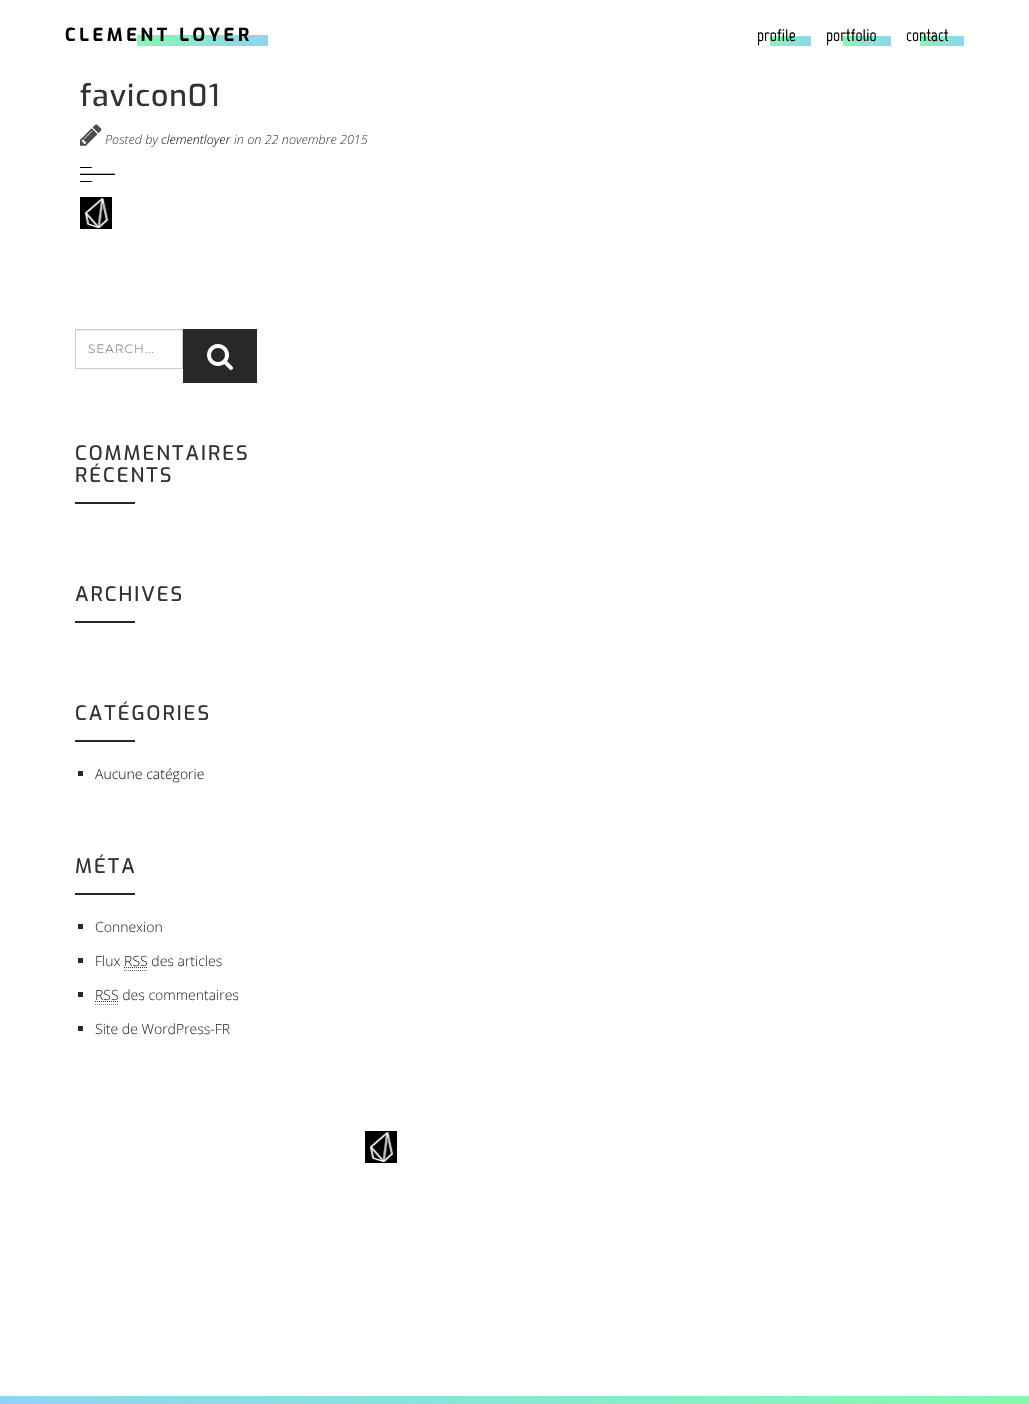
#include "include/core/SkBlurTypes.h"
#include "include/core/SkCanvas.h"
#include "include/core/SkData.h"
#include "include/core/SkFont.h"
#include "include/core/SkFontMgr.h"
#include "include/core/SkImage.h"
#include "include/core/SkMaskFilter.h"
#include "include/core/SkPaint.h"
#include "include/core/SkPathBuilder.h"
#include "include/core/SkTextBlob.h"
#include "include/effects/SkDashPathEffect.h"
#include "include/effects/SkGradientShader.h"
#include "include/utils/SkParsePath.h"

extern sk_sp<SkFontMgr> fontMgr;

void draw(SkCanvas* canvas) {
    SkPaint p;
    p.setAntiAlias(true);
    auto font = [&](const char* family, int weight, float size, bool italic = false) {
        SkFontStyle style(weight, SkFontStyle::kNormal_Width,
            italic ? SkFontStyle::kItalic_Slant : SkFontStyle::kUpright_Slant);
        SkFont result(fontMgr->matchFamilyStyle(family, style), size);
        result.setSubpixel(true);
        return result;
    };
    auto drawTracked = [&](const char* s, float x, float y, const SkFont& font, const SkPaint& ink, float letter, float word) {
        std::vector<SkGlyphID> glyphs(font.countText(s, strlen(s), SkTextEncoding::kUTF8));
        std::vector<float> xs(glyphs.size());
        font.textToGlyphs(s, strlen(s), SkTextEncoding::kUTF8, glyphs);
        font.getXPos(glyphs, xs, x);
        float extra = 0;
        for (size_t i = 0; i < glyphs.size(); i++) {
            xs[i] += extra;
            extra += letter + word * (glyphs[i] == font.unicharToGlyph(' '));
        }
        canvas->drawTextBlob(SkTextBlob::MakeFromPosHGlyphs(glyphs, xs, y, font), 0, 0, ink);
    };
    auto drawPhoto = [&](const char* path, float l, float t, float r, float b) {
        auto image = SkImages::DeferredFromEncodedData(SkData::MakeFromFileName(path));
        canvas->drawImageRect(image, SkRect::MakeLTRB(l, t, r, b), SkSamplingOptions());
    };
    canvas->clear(0xFFFFFFFF);
    {
        const SkColor colors[] = {0xFF84FAB0, 0xFF8FD3F4};
        const float stops[] = {0, 1};
        const SkPoint ends[] = {{151, 11}, {254, 71}};
        p.setShader(SkGradientShader::MakeLinear(ends, colors, stops, 2, SkTileMode::kClamp));
        p.setAlpha(255);
    }
    canvas->drawRect(SkRect::MakeLTRB(137, 35, 268, 46), p);
    auto font1 = font("Exo", 700, 18);
    p.setShader(nullptr);
    p.setColor(0xFF020202);
    drawTracked("CLEMENT LOYER", 65, 41, font1, p, 3.6f, 0);
    {
        const SkColor colors[] = {0xFF84FAB0, 0xFF8FD3F4};
        const float stops[] = {0, 1};
        const SkPoint ends[] = {{773, 31}, {808, 51}};
        p.setShader(SkGradientShader::MakeLinear(ends, colors, stops, 2, SkTileMode::kClamp));
        p.setAlpha(255);
    }
    canvas->drawRect(SkRect::MakeLTRB(770, 36, 811, 46), p);
    auto font2 = font("Marvel", 700, 17);
    p.setShader(nullptr);
    p.setColor(0xFF020202);
    canvas->drawString("profile", 757, 41, font2, p);
    {
        const SkColor colors[] = {0xFF84FAB0, 0xFF8FD3F4};
        const float stops[] = {0, 1};
        const SkPoint ends[] = {{847, 29}, {887, 53}};
        p.setShader(SkGradientShader::MakeLinear(ends, colors, stops, 2, SkTileMode::kClamp));
        p.setAlpha(255);
    }
    canvas->drawRect(SkRect::MakeLTRB(843, 36, 891, 46), p);
    p.setShader(nullptr);
    p.setColor(0xFF020202);
    canvas->drawString("portfolio", 826, 41, font2, p);
    {
        const SkColor colors[] = {0xFF84FAB0, 0xFF8FD3F4};
        const float stops[] = {0, 1};
        const SkPoint ends[] = {{923, 30}, {961, 52}};
        p.setShader(SkGradientShader::MakeLinear(ends, colors, stops, 2, SkTileMode::kClamp));
        p.setAlpha(255);
    }
    canvas->drawRect(SkRect::MakeLTRB(920, 36, 964, 46), p);
    p.setShader(nullptr);
    p.setColor(0xFF020202);
    canvas->drawString("contact", 906, 41, font2, p);
    auto font3 = font("Exo", 500, 30);
    p.setColor(0xFF333333);
    drawTracked("favicon01", 80, 106, font3, p, 1, 0);
    drawPhoto("media/1.png", 80, 124, 102, 146);
    auto font4 = font("Open Sans", 300, 12.6f, true);
    p.setColor(0xFF4C4C4C);
    canvas->drawString("Posted by", 105, 144, font4, p);
    p.setColor(0xFF252525);
    canvas->drawString("clementloyer", 161, 144, font4, p);
    p.setColor(0xFF4C4C4C);
    canvas->drawString("in on 22 novembre 2015", 234, 144, font4, p);
    drawPhoto("media/2.png", 80, 167, 115, 182);
    drawPhoto("media/3.png", 80, 197, 112, 229);
    p.setColor(0xFFECECEC);
    canvas->drawRect(SkRect::MakeLTRB(76, 330, 182, 331), p);
    p.setStyle(SkPaint::kStroke_Style);
    p.setStrokeWidth(1);
    p.setColor(0xFFCCCCCC);
    canvas->drawRect(SkRect::MakeLTRB(75.5f, 329.5f, 182.5f, 368.5f), p);
    auto font5 = font("Montserrat", 300, 12);
    p.setStyle(SkPaint::kFill_Style);
    p.setColor(0xFF777777);
    drawTracked("SEARCH...", 88, 353, font5, p, 1, 0);
    p.setColor(0xFF282828);
    canvas->drawRect(SkRect::MakeLTRB(183, 329, 257, 383), p);
    drawPhoto("media/4.png", 207, 344, 233, 370);
    auto font6 = font("Exo", 500, 20);
    p.setColor(0xFF333333);
    drawTracked("COMMENTAIRES", 75, 460, font6, p, 2, 0);
    drawTracked("RÉCENTS", 75, 482, font6, p, 2, 0);
    p.setColor(0xFF282828);
    canvas->drawRect(SkRect::MakeLTRB(75, 502, 135, 504), p);
    p.setColor(0xFF333333);
    drawTracked("ARCHIVES", 75, 601, font6, p, 2, 0);
    p.setColor(0xFF282828);
    canvas->drawRect(SkRect::MakeLTRB(75, 621, 135, 623), p);
    p.setColor(0xFF333333);
    drawTracked("CATÉGORIES", 75, 720, font6, p, 2, 0);
    p.setColor(0xFF282828);
    canvas->drawRect(SkRect::MakeLTRB(75, 740, 135, 742), p);
    canvas->drawRect(SkRect::MakeLTRB(78, 771, 83, 776), p);
    auto font7 = font("Open Sans", 300, 14);
    p.setColor(0xFF252525);
    canvas->drawString("Aucune catégorie", 95, 779, font7, p);
    p.setColor(0xFF333333);
    drawTracked("MÉTA", 75, 873, font6, p, 2, 0);
    p.setColor(0xFF282828);
    canvas->drawRect(SkRect::MakeLTRB(75, 893, 135, 895), p);
    canvas->drawRect(SkRect::MakeLTRB(78, 924, 83, 929), p);
    p.setColor(0xFF333333);
    canvas->drawString("Connexion", 95, 932, font7, p);
    p.setColor(0xFF282828);
    canvas->drawRect(SkRect::MakeLTRB(78, 958, 83, 963), p);
    p.setColor(0xFF333333);
    canvas->drawString("Flux RSS des articles", 95, 966, font7, p);
    p.setStyle(SkPaint::kStroke_Style);
    p.setColor(0xFF777777);
    p.setPathEffect(SkDashPathEffect::Make({{1, 1}}, 0));
    canvas->drawPath(SkPathBuilder().moveTo(124, 970.5f).lineTo(148, 970.5f).detach(), p);
    p.setPathEffect(nullptr);
    p.setColor(0xFF353535);
    p.setPathEffect(SkDashPathEffect::Make({{1, 1}}, 0));
    canvas->drawPath(SkPathBuilder().moveTo(124, 967.5f).lineTo(147.5f, 967.5f).detach(), p);
    p.setPathEffect(nullptr);
    p.setStyle(SkPaint::kFill_Style);
    p.setColor(0xFF282828);
    canvas->drawRect(SkRect::MakeLTRB(78, 992, 83, 997), p);
    p.setColor(0xFF333333);
    canvas->drawString("RSS des commentaires", 95, 1000, font7, p);
    p.setStyle(SkPaint::kStroke_Style);
    p.setColor(0xFF777777);
    p.setPathEffect(SkDashPathEffect::Make({{1, 1}}, 0));
    canvas->drawPath(SkPathBuilder().moveTo(95, 1004.5f).lineTo(119, 1004.5f).detach(), p);
    p.setPathEffect(nullptr);
    p.setColor(0xFF353535);
    p.setPathEffect(SkDashPathEffect::Make({{1, 1}}, 0));
    canvas->drawPath(SkPathBuilder().moveTo(95, 1001.5f).lineTo(118.5f, 1001.5f).detach(), p);
    p.setPathEffect(nullptr);
    p.setStyle(SkPaint::kFill_Style);
    p.setColor(0xFF282828);
    canvas->drawRect(SkRect::MakeLTRB(78, 1026, 83, 1031), p);
    p.setColor(0xFF333333);
    canvas->drawString("Site de WordPress-FR", 95, 1034, font7, p);
    drawPhoto("media/3.png", 365, 1131, 397, 1163);
    {
        const SkColor colors[] = {0xFF8FD3F4, 0xFF84FAB0};
        const float stops[] = {0, 1};
        const SkPoint ends[] = {{127, 1176}, {902, 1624}};
        p.setShader(SkGradientShader::MakeLinear(ends, colors, stops, 2, SkTileMode::kClamp));
        p.setAlpha(255);
    }
    canvas->drawRect(SkRect::MakeLTRB(0, 1396, 1029, 1404), p);
}
